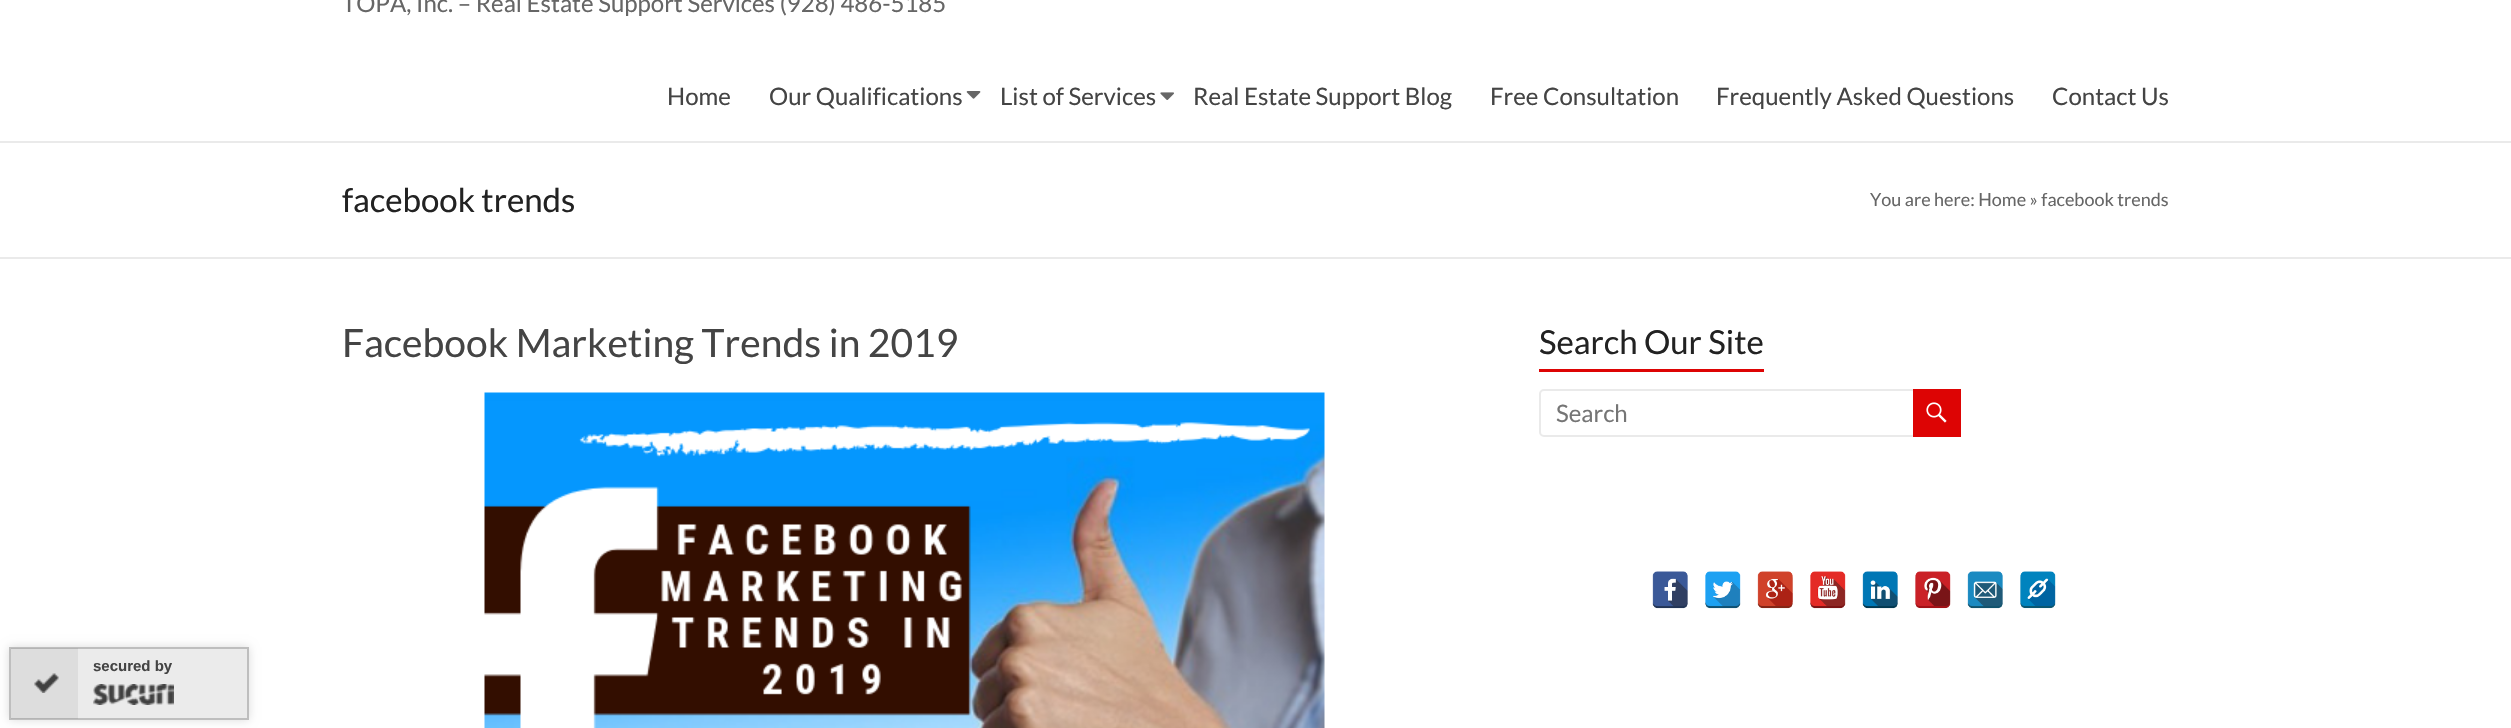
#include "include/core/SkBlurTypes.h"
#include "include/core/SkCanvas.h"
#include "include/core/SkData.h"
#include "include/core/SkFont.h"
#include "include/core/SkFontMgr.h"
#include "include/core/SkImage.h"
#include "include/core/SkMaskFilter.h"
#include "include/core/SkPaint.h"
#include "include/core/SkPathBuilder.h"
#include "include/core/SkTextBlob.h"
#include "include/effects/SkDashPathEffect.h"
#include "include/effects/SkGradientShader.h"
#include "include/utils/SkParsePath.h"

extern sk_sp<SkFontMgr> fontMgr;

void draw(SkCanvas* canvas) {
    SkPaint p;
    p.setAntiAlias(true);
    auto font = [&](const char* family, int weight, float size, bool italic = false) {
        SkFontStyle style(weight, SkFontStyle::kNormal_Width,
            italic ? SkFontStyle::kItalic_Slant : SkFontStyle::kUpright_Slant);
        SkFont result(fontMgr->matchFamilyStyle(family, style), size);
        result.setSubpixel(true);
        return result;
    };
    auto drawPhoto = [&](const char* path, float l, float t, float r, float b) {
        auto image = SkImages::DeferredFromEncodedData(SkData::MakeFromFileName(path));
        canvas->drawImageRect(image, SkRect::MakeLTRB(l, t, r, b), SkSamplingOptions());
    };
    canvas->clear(0xFFFFFFFF);
    p.setColor(0xFFEAEAEA);
    canvas->drawRect(SkRect::MakeLTRB(0, 141, 2511, 143), p);
    auto font1 = font("Lato", 400, 24);
    p.setColor(0xFF666666);
    canvas->drawString("TOPA, Inc. – Real Estate Support Services (928) 486-5185", 342, 12, font1, p);
    p.setColor(0xFF444444);
    canvas->drawString("Home", 667, 105, font1, p);
    canvas->drawString("Our Qualifications", 769, 105, font1, p);
    drawPhoto("media/1.png", 966, 91, 981, 99);
    canvas->drawString("List of Services", 1000, 105, font1, p);
    drawPhoto("media/2.png", 1160, 92, 1174, 100);
    {
        const struct { const char* s; float x, y; } items[] = {
            {"Real Estate Support Blog", 1193, 105},
            {"Free Consultation", 1490, 105},
            {"Frequently Asked Questions", 1716, 105},
            {"Contact Us", 2052, 105},
        };
        for (auto [s, x, y] : items) {
            canvas->drawString(s, x, y, font1, p);
        }
    }
    p.setColor(0xFFEAEAEA);
    canvas->drawRect(SkRect::MakeLTRB(0, 257, 2511, 259), p);
    auto font2 = font("Lato", 400, 33);
    p.setColor(0xFF222222);
    canvas->drawString("facebook trends", 342, 212, font2, p);
    auto font3 = font("Lato", 400, 18);
    p.setColor(0xFF666666);
    canvas->drawString("You are here: Home » facebook trends", 1870, 206, font3, p);
    auto font4 = font("Lato", 400, 39);
    p.setColor(0xFF444444);
    canvas->drawString("Facebook Marketing Trends in 2019", 342, 357, font4, p);
    drawPhoto("media/3.png", 484, 392, 1325, 728);
    p.setColor(0xFF222222);
    canvas->drawString("Search Our Site", 1539, 354, font2, p);
    p.setColor(0xFFDD0404);
    canvas->drawRect(SkRect::MakeLTRB(1539, 369, 1764, 372), p);
    p.setStyle(SkPaint::kStroke_Style);
    p.setStrokeWidth(2);
    p.setColor(0xFFEAEAEA);
    canvas->drawRoundRect(SkRect::MakeLTRB(1540, 390, 1916, 436), 4, 4, p);
    p.setStyle(SkPaint::kFill_Style);
    p.setColor(0xFF757575);
    canvas->drawString("Search", 1556, 422, font1, p);
    p.setColor(0xFFDD0404);
    canvas->drawRect(SkRect::MakeLTRB(1913, 389, 1961, 437), p);
    drawPhoto("media/4.png", 1926, 402, 1947, 423);
    drawPhoto("media/5.png", 1652, 571, 1688, 609);
    drawPhoto("media/6.png", 1705, 571, 1741, 609);
    drawPhoto("media/7.png", 1757, 571, 1793, 609);
    drawPhoto("media/8.png", 1810, 571, 1846, 609);
    drawPhoto("media/9.png", 1862, 571, 1898, 609);
    drawPhoto("media/10.png", 1915, 571, 1951, 609);
    drawPhoto("media/11.png", 1967, 571, 2003, 609);
    drawPhoto("media/12.png", 2020, 571, 2056, 609);
    p.setColor(0x24000000);
    p.setMaskFilter(SkMaskFilter::MakeBlur(kNormal_SkBlurStyle, 4.5f));
    canvas->drawRect(SkRect::MakeLTRB(9, 647, 249, 720), p);
    p.setMaskFilter(nullptr);
    p.setColor(0xFFEBEBEB);
    canvas->drawRect(SkRect::MakeLTRB(10, 648, 248, 719), p);
    p.setStyle(SkPaint::kStroke_Style);
    p.setColor(0xFFBEBEBE);
    canvas->drawRect(SkRect::MakeLTRB(10, 648, 248, 719), p);
    p.setStyle(SkPaint::kFill_Style);
    p.setColor(0x14404040);
    canvas->drawRect(SkRect::MakeLTRB(11, 648, 78, 719), p);
    drawPhoto("media/13.png", 34, 673, 59, 693);
    auto font5 = font("Liberation Sans", 700, 15);
    p.setColor(0xFF444444);
    canvas->drawString("secured by", 93, 671, font5, p);
    drawPhoto("media/14.png", 93, 684, 174, 705);
}
